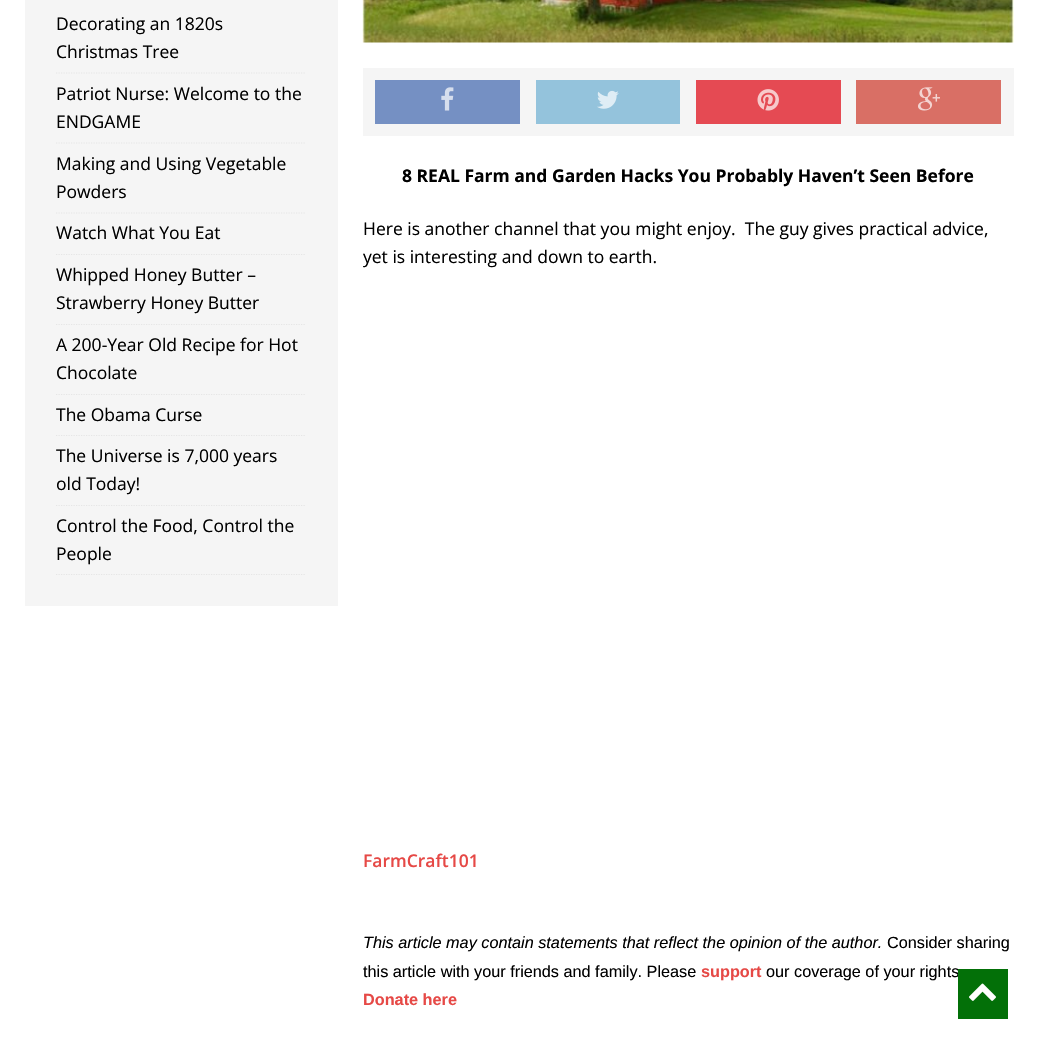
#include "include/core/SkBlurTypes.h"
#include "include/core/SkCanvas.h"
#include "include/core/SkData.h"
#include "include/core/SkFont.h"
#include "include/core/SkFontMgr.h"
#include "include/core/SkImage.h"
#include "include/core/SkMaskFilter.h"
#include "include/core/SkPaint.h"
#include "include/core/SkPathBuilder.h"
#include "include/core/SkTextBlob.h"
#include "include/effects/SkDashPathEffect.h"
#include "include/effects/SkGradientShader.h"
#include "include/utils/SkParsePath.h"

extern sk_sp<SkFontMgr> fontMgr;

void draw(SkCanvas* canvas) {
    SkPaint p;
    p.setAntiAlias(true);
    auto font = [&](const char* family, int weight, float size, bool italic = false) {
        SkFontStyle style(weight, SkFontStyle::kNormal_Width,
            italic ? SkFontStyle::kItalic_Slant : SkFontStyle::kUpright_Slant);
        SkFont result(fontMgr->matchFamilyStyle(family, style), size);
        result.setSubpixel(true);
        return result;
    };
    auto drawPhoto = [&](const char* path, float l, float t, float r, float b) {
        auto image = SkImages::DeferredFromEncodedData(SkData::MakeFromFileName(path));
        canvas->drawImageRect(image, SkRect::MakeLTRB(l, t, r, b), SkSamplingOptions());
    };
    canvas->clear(0xFFFFFFFF);
    p.setColor(0xFFF5F5F5);
    canvas->drawRect(SkRect::MakeLTRB(25, 0, 338, 606), p);
    p.setStyle(SkPaint::kStroke_Style);
    p.setStrokeWidth(1.2f);
    p.setColor(0xFFE5E5E5);
    p.setPathEffect(SkDashPathEffect::Make({{1.25f, 1.25f}}, 0));
    canvas->drawPath(SkPathBuilder().moveTo(56, 73).lineTo(306, 73).detach(), p);
    p.setPathEffect(nullptr);
    auto font1 = font("Open Sans", 400, 17.5f);
    p.setStyle(SkPaint::kFill_Style);
    p.setColor(0xFF000000);
    canvas->drawString("Decorating an 1820s", 56, 30, font1, p);
    canvas->drawString("Christmas Tree", 56, 58, font1, p);
    p.setStyle(SkPaint::kStroke_Style);
    p.setColor(0xFFE5E5E5);
    p.setPathEffect(SkDashPathEffect::Make({{1.25f, 1.25f}}, 0));
    canvas->drawPath(SkPathBuilder().moveTo(56, 143).lineTo(306, 143).detach(), p);
    p.setPathEffect(nullptr);
    p.setStyle(SkPaint::kFill_Style);
    p.setColor(0xFF000000);
    canvas->drawString("Patriot Nurse: Welcome to the", 56, 100, font1, p);
    canvas->drawString("ENDGAME", 56, 128, font1, p);
    p.setStyle(SkPaint::kStroke_Style);
    p.setColor(0xFFE5E5E5);
    p.setPathEffect(SkDashPathEffect::Make({{1.25f, 1.25f}}, 0));
    canvas->drawPath(SkPathBuilder().moveTo(56, 213).lineTo(306, 213).detach(), p);
    p.setPathEffect(nullptr);
    p.setStyle(SkPaint::kFill_Style);
    p.setColor(0xFF000000);
    canvas->drawString("Making and Using Vegetable", 56, 170, font1, p);
    canvas->drawString("Powders", 56, 198, font1, p);
    p.setStyle(SkPaint::kStroke_Style);
    p.setColor(0xFFE5E5E5);
    p.setPathEffect(SkDashPathEffect::Make({{1.25f, 1.25f}}, 0));
    canvas->drawPath(SkPathBuilder().moveTo(56, 254.5f).lineTo(306, 254.5f).detach(), p);
    p.setPathEffect(nullptr);
    p.setStyle(SkPaint::kFill_Style);
    p.setColor(0xFF000000);
    canvas->drawString("Watch What You Eat", 56, 239, font1, p);
    p.setStyle(SkPaint::kStroke_Style);
    p.setColor(0xFFE5E5E5);
    p.setPathEffect(SkDashPathEffect::Make({{1.25f, 1.25f}}, 0));
    canvas->drawPath(SkPathBuilder().moveTo(56, 324.5f).lineTo(306, 324.5f).detach(), p);
    p.setPathEffect(nullptr);
    p.setStyle(SkPaint::kFill_Style);
    p.setColor(0xFF000000);
    canvas->drawString("Whipped Honey Butter –", 56, 281, font1, p);
    canvas->drawString("Strawberry Honey Butter", 56, 309, font1, p);
    p.setStyle(SkPaint::kStroke_Style);
    p.setColor(0xFFE5E5E5);
    p.setPathEffect(SkDashPathEffect::Make({{1.25f, 1.25f}}, 0));
    canvas->drawPath(SkPathBuilder().moveTo(56, 394.5f).lineTo(306, 394.5f).detach(), p);
    p.setPathEffect(nullptr);
    p.setStyle(SkPaint::kFill_Style);
    p.setColor(0xFF000000);
    canvas->drawString("A 200-Year Old Recipe for Hot", 56, 351, font1, p);
    canvas->drawString("Chocolate", 56, 379, font1, p);
    p.setStyle(SkPaint::kStroke_Style);
    p.setColor(0xFFE5E5E5);
    p.setPathEffect(SkDashPathEffect::Make({{1.25f, 1.25f}}, 0));
    canvas->drawPath(SkPathBuilder().moveTo(56, 435.5f).lineTo(306, 435.5f).detach(), p);
    p.setPathEffect(nullptr);
    p.setStyle(SkPaint::kFill_Style);
    p.setColor(0xFF000000);
    canvas->drawString("The Obama Curse", 56, 421, font1, p);
    p.setStyle(SkPaint::kStroke_Style);
    p.setColor(0xFFE5E5E5);
    p.setPathEffect(SkDashPathEffect::Make({{1.25f, 1.25f}}, 0));
    canvas->drawPath(SkPathBuilder().moveTo(56, 505.5f).lineTo(306, 505.5f).detach(), p);
    p.setPathEffect(nullptr);
    p.setStyle(SkPaint::kFill_Style);
    p.setColor(0xFF000000);
    canvas->drawString("The Universe is 7,000 years", 56, 462, font1, p);
    canvas->drawString("old Today!", 56, 490, font1, p);
    p.setStyle(SkPaint::kStroke_Style);
    p.setColor(0xFFE5E5E5);
    p.setPathEffect(SkDashPathEffect::Make({{1.25f, 1.25f}}, 0));
    canvas->drawPath(SkPathBuilder().moveTo(56, 574.5f).lineTo(306, 574.5f).detach(), p);
    p.setPathEffect(nullptr);
    p.setStyle(SkPaint::kFill_Style);
    p.setColor(0xFF000000);
    canvas->drawString("Control the Food, Control the", 56, 532, font1, p);
    canvas->drawString("People", 56, 560, font1, p);
    drawPhoto("media/1.png", 362, 0, 1014, 43);
    p.setColor(0xFFF5F5F5);
    canvas->drawRect(SkRect::MakeLTRB(363, 68, 1014, 136), p);
    p.setColor(0xFF7590C3);
    canvas->drawRect(SkRect::MakeLTRB(375, 80, 520, 124), p);
    drawPhoto("media/2.png", 441, 87, 454, 111);
    p.setColor(0xFF94C3DC);
    canvas->drawRect(SkRect::MakeLTRB(536, 80, 680, 124), p);
    drawPhoto("media/3.png", 597, 90, 619, 109);
    p.setColor(0xFFE54A53);
    canvas->drawRect(SkRect::MakeLTRB(696, 80, 841, 124), p);
    drawPhoto("media/4.png", 757, 89, 779, 111);
    p.setColor(0xFFD96F65);
    canvas->drawRect(SkRect::MakeLTRB(856, 80, 1001, 124), p);
    drawPhoto("media/5.png", 918, 87, 940, 111);
    auto font2 = font("Open Sans", 700, 17.5f);
    p.setColor(0xFF000000);
    canvas->drawString("8 REAL Farm and Garden Hacks You Probably Haven’t Seen Before", 402, 182, font2, p);
    canvas->drawString("Here is another channel that you might enjoy.  The guy gives practical advice,", 363, 235, font1, p);
    canvas->drawString("yet is interesting and down to earth.", 363, 263, font1, p);
    auto font3 = font("Open Sans", 600, 17.5f);
    p.setColor(0xFFE64946);
    canvas->drawString("FarmCraft101", 363, 867, font3, p);
    auto font4 = font("Liberation Sans", 400, 16.25f, true);
    p.setColor(0xFF000000);
    canvas->drawString("This article may contain statements that reflect the opinion of the author.", 363, 948, font4, p);
    auto font5 = font("Liberation Sans", 400, 16.25f);
    canvas->drawString("Consider sharing", 887, 948, font5, p);
    canvas->drawString("this article with your friends and family. Please", 363, 977, font5, p);
    auto font6 = font("Liberation Sans", 700, 16.25f);
    p.setColor(0xFFE64946);
    canvas->drawString("support", 701, 977, font6, p);
    p.setColor(0xFF000000);
    canvas->drawString("our coverage of your rights", 766, 977, font5, p);
    p.setColor(0xFFE64946);
    canvas->drawString("Donate here", 363, 1005, font6, p);
    p.setColor(0xFF037008);
    canvas->drawRect(SkRect::MakeLTRB(958, 969, 1008, 1019), p);
    drawPhoto("media/6.png", 969, 983, 996, 1001);
}
